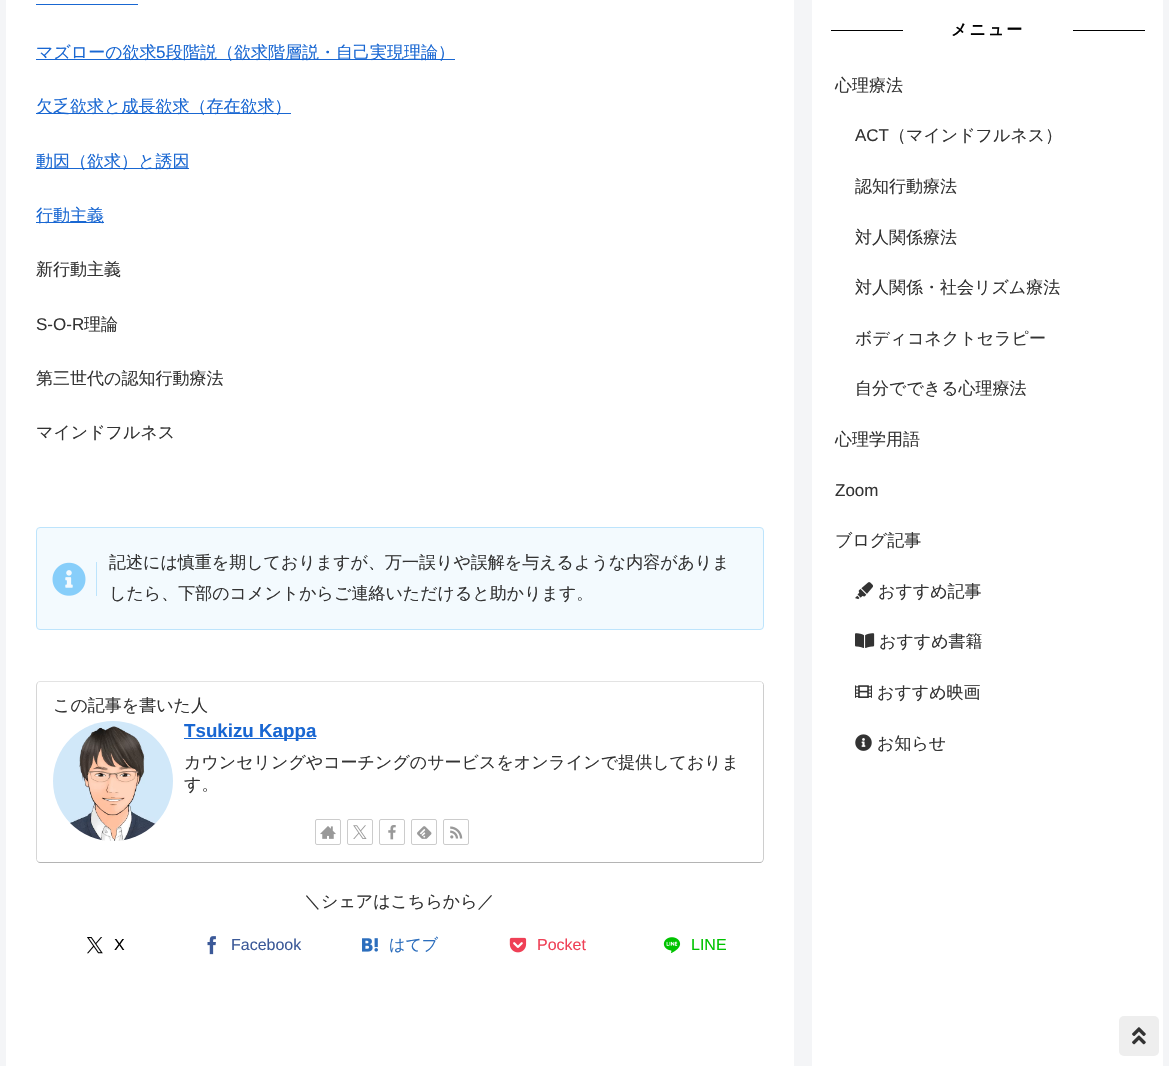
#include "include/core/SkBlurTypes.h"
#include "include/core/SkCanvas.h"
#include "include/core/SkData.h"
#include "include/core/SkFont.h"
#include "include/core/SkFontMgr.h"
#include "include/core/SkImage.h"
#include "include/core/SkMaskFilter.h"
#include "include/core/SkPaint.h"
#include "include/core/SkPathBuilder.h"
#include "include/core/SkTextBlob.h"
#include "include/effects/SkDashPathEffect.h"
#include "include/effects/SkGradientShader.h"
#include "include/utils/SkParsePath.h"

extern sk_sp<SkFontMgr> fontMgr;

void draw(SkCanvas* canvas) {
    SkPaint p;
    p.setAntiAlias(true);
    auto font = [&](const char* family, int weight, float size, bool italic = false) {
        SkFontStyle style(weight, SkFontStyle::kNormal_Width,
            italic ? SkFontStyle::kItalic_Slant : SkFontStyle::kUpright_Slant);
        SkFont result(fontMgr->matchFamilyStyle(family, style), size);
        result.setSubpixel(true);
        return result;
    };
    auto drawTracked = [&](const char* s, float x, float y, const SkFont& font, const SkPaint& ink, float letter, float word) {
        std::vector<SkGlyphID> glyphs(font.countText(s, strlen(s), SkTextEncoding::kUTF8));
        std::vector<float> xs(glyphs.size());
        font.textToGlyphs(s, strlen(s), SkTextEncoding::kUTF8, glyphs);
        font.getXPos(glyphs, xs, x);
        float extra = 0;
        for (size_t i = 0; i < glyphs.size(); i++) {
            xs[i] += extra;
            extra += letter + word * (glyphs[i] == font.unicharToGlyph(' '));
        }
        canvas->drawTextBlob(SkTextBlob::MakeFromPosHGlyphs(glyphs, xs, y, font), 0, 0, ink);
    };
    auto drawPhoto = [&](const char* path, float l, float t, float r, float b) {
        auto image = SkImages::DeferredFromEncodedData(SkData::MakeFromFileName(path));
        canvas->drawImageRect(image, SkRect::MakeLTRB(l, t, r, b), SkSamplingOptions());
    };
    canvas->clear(0xFFF4F5F7);
    {
        const struct { float l, t, r, b; SkColor color; } items[] = {
            {6, 0, 794, 1066, 0xFFFFFFFF},
            {36, 4, 138, 5, 0xFF1967D2},
            {36, 59, 455, 60, 0xFF1967D2},
        };
        for (auto [l, t, r, b, color] : items) {
            p.setColor(color);
            canvas->drawRect(SkRect::MakeLTRB(l, t, r, b), p);
        }
    }
    auto font1 = font("WenQuanYi Zen Hei", 500, 17);
    canvas->drawString("マズローの欲求", 36, 58, font1, p);
    auto font2 = font("Liberation Sans", 400, 17);
    canvas->drawString("5", 156, 58, font2, p);
    canvas->drawString("段階説（欲求階層説・自己実現理論）", 166, 58, font1, p);
    canvas->drawRect(SkRect::MakeLTRB(36, 113, 291, 114), p);
    canvas->drawString("欠乏欲求と成長欲求（存在欲求）", 36, 112, font1, p);
    canvas->drawRect(SkRect::MakeLTRB(36, 168, 189, 169), p);
    canvas->drawString("動因（欲求）と誘因", 36, 167, font1, p);
    canvas->drawRect(SkRect::MakeLTRB(36, 222, 104, 223), p);
    canvas->drawString("行動主義", 36, 221, font1, p);
    p.setColor(0xFF333333);
    canvas->drawString("新行動主義", 36, 275, font1, p);
    canvas->drawString("S-O-R", 36, 330, font2, p);
    {
        const struct { const char* s; float x, y; } items[] = {
            {"理論", 84, 330},
            {"第三世代の認知行動療法", 36, 384},
            {"マインドフルネス", 36, 438},
        };
        for (auto [s, x, y] : items) {
            canvas->drawString(s, x, y, font1, p);
        }
    }
    p.setColor(0xFFF3FAFE);
    canvas->drawRoundRect(SkRect::MakeLTRB(36.5f, 527.5f, 763.5f, 629.5f), 3.5f, 3.5f, p);
    p.setStyle(SkPaint::kStroke_Style);
    p.setStrokeWidth(1);
    p.setColor(0xFFBDE4FC);
    canvas->drawRoundRect(SkRect::MakeLTRB(36.5f, 527.5f, 763.5f, 629.5f), 3.5f, 3.5f, p);
    p.setStyle(SkPaint::kFill_Style);
    canvas->drawRect(SkRect::MakeLTRB(96, 562, 97, 596), p);
    drawPhoto("media/1.png", 52, 562, 86, 596);
    p.setColor(0xFF333333);
    canvas->drawString("記述には慎重を期しておりますが、万一誤りや誤解を与えるような内容がありま", 109, 568, font1, p);
    canvas->drawString("したら、下部のコメントからご連絡いただけると助かります。", 109, 599, font1, p);
    p.setStyle(SkPaint::kStroke_Style);
    p.setColor(0xFFE3E3E3);
    canvas->drawPath(SkPathBuilder().moveTo(37.5f, 682.5f).cubicTo(38, 682, 39, 681.5f, 40, 681.5f).lineTo(760, 681.5f).cubicTo(761, 681.5f, 762, 682, 762.5f, 682.5f).detach(), p);
    p.setColor(0xFFCECECE);
    canvas->drawPath(SkPathBuilder().moveTo(762.5f, 682.5f).lineTo(763.5f, 684.5f).lineTo(763.5f, 830).lineTo(763.5f, 859).lineTo(762.5f, 861.5f).detach(), p);
    p.setColor(0xFFB4B4B4);
    canvas->drawPath(SkPathBuilder().moveTo(762.5f, 861.5f).cubicTo(762, 862, 761, 862.5f, 760, 862.5f).lineTo(40, 862.5f).cubicTo(39, 862.5f, 38, 862, 37.5f, 861.5f).detach(), p);
    p.setColor(0xFFD6D6D6);
    canvas->drawPath(SkPathBuilder().moveTo(37.5f, 861.5f).lineTo(36.5f, 859.5f).lineTo(36.5f, 714).lineTo(36.5f, 685).lineTo(37.5f, 682.5f).detach(), p);
    p.setStyle(SkPaint::kFill_Style);
    p.setColor(0xFF333333);
    canvas->drawString("この記事を書いた人", 53, 711, font1, p);
    drawPhoto("media/2.png", 53, 721, 173, 841);
    p.setColor(0xFF1967D2);
    canvas->drawRect(SkRect::MakeLTRB(184, 738, 316, 739), p);
    auto font3 = font("Liberation Sans", 700, 18.75f);
    canvas->drawString("Tsukizu Kappa", 184, 737, font3, p);
    p.setColor(0xFF333333);
    canvas->drawString("カウンセリングやコーチングのサービスをオンラインで提供しておりま", 184, 768, font1, p);
    canvas->drawString("す。", 184, 790, font1, p);
    p.setStyle(SkPaint::kStroke_Style);
    p.setColor(0xFFCCCCCC);
    canvas->drawRoundRect(SkRect::MakeLTRB(315.5f, 819.5f, 340.5f, 844.5f), 1.5f, 1.5f, p);
    drawPhoto("media/3.png", 320, 826, 336, 839);
    canvas->drawRoundRect(SkRect::MakeLTRB(347.5f, 819.5f, 372.5f, 844.5f), 1.5f, 1.5f, p);
    drawPhoto("media/4.png", 353, 825, 367, 839);
    canvas->drawRoundRect(SkRect::MakeLTRB(379.5f, 819.5f, 404.5f, 844.5f), 1.5f, 1.5f, p);
    drawPhoto("media/5.png", 388, 825, 396, 840);
    canvas->drawRoundRect(SkRect::MakeLTRB(411.5f, 819.5f, 436.5f, 844.5f), 1.5f, 1.5f, p);
    drawPhoto("media/6.png", 417, 826, 432, 839);
    canvas->drawRoundRect(SkRect::MakeLTRB(443.5f, 819.5f, 468.5f, 844.5f), 1.5f, 1.5f, p);
    drawPhoto("media/7.png", 450, 826, 463, 839);
    p.setStyle(SkPaint::kFill_Style);
    p.setColor(0xFF333333);
    canvas->drawString("＼シェアはこちらから／", 304, 907, font1, p);
    drawPhoto("media/8.png", 87, 937, 103, 954);
    auto font4 = font("Liberation Sans", 400, 16);
    p.setColor(0xFF000000);
    canvas->drawString("X", 114, 950, font4, p);
    drawPhoto("media/9.png", 207, 936, 216, 955);
    p.setColor(0xFF3B5998);
    canvas->drawString("Facebook", 231, 950, font4, p);
    drawPhoto("media/10.png", 362, 938, 378, 952);
    auto font5 = font("WenQuanYi Zen Hei", 500, 16);
    p.setColor(0xFF2C6EBD);
    canvas->drawString("はてブ", 389, 950, font5, p);
    drawPhoto("media/11.png", 509, 937, 527, 953);
    p.setColor(0xFFEF4056);
    canvas->drawString("Pocket", 537, 950, font4, p);
    drawPhoto("media/12.png", 663, 937, 681, 953);
    p.setColor(0xFF00C300);
    canvas->drawString("LINE", 691, 950, font4, p);
    p.setColor(0xFFFFFFFF);
    canvas->drawRect(SkRect::MakeLTRB(812, 0, 1163, 1066), p);
    p.setColor(0xFF000000);
    canvas->drawRect(SkRect::MakeLTRB(831, 30, 903, 31), p);
    auto font6 = font("WenQuanYi Zen Hei", 700, 16);
    drawTracked("メニュー", 951, 35, font6, p, 2, 0);
    canvas->drawRect(SkRect::MakeLTRB(1073, 30, 1145, 31), p);
    p.setColor(0xFF333333);
    canvas->drawString("心理療法", 835, 91, font1, p);
    canvas->drawString("ACT", 855, 141, font2, p);
    {
        const struct { const char* s; float x, y; } items[] = {
            {"（マインドフルネス）", 889, 141},
            {"認知行動療法", 855, 192},
            {"対人関係療法", 855, 243},
            {"対人関係・社会リズム療法", 855, 293},
            {"ボディコネクトセラピー", 855, 344},
            {"自分でできる心理療法", 855, 394},
            {"心理学用語", 835, 445},
        };
        for (auto [s, x, y] : items) {
            canvas->drawString(s, x, y, font1, p);
        }
    }
    canvas->drawString("Zoom", 835, 496, font2, p);
    canvas->drawString("ブログ記事", 835, 546, font1, p);
    drawPhoto("media/13.png", 855, 582, 873, 600);
    canvas->drawString("おすすめ記事", 878, 597, font1, p);
    drawPhoto("media/14.png", 855, 633, 875, 648);
    canvas->drawString("おすすめ書籍", 879, 647, font1, p);
    drawPhoto("media/15.png", 855, 685, 872, 698);
    canvas->drawString("おすすめ映画", 877, 698, font1, p);
    drawPhoto("media/16.png", 855, 734, 872, 751);
    canvas->drawString("お知らせ", 877, 749, font1, p);
    p.setColor(0xFFEEEEEE);
    canvas->drawRoundRect(SkRect::MakeLTRB(1119, 1016, 1159, 1056), 5, 5, p);
    drawPhoto("media/17.png", 1132, 1027, 1146, 1045);
}
